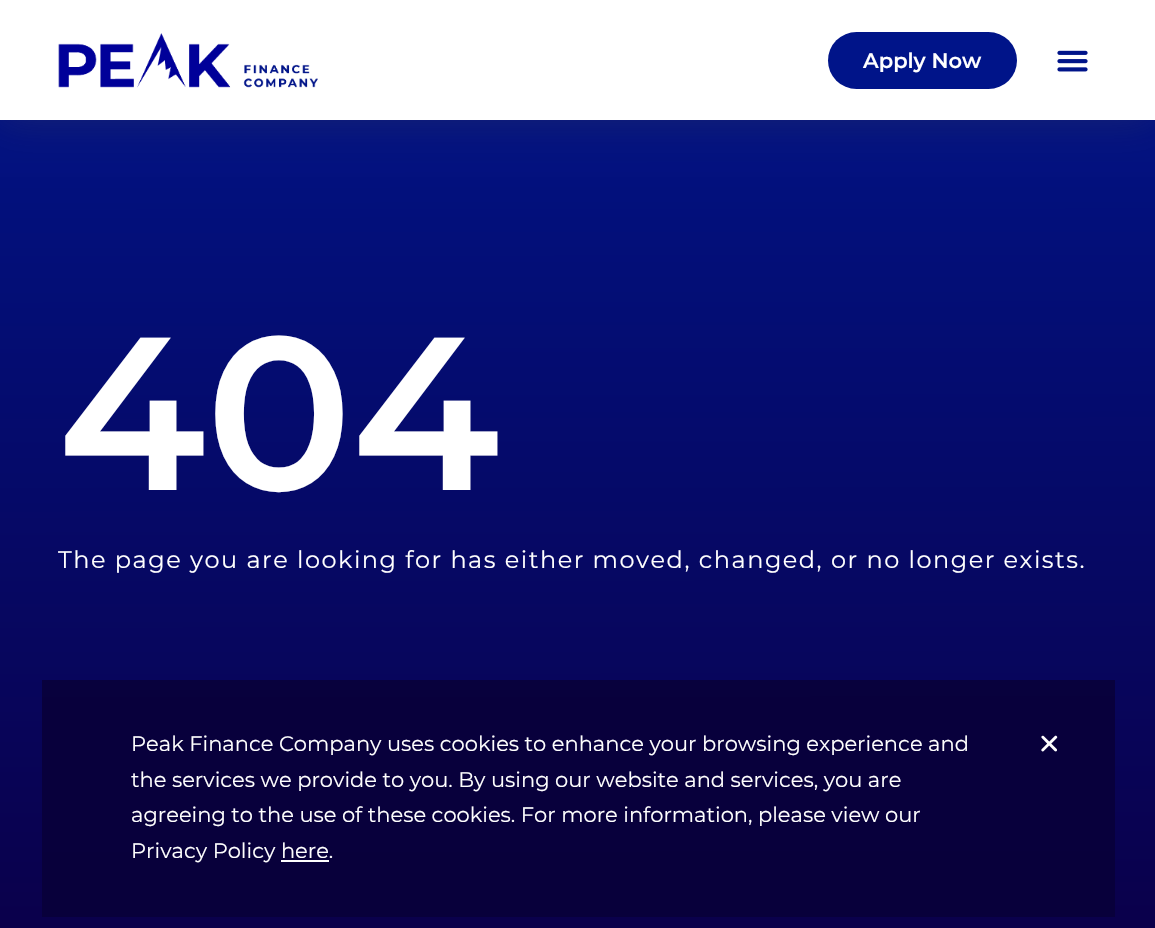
#include "include/core/SkBlurTypes.h"
#include "include/core/SkCanvas.h"
#include "include/core/SkData.h"
#include "include/core/SkFont.h"
#include "include/core/SkFontMgr.h"
#include "include/core/SkImage.h"
#include "include/core/SkMaskFilter.h"
#include "include/core/SkPaint.h"
#include "include/core/SkPathBuilder.h"
#include "include/core/SkTextBlob.h"
#include "include/effects/SkDashPathEffect.h"
#include "include/effects/SkGradientShader.h"
#include "include/utils/SkParsePath.h"

extern sk_sp<SkFontMgr> fontMgr;

void draw(SkCanvas* canvas) {
    SkPaint p;
    p.setAntiAlias(true);
    auto font = [&](const char* family, int weight, float size, bool italic = false) {
        SkFontStyle style(weight, SkFontStyle::kNormal_Width,
            italic ? SkFontStyle::kItalic_Slant : SkFontStyle::kUpright_Slant);
        SkFont result(fontMgr->matchFamilyStyle(family, style), size);
        result.setSubpixel(true);
        return result;
    };
    auto drawTracked = [&](const char* s, float x, float y, const SkFont& font, const SkPaint& ink, float letter, float word) {
        std::vector<SkGlyphID> glyphs(font.countText(s, strlen(s), SkTextEncoding::kUTF8));
        std::vector<float> xs(glyphs.size());
        font.textToGlyphs(s, strlen(s), SkTextEncoding::kUTF8, glyphs);
        font.getXPos(glyphs, xs, x);
        float extra = 0;
        for (size_t i = 0; i < glyphs.size(); i++) {
            xs[i] += extra;
            extra += letter + word * (glyphs[i] == font.unicharToGlyph(' '));
        }
        canvas->drawTextBlob(SkTextBlob::MakeFromPosHGlyphs(glyphs, xs, y, font), 0, 0, ink);
    };
    auto drawPhoto = [&](const char* path, float l, float t, float r, float b) {
        auto image = SkImages::DeferredFromEncodedData(SkData::MakeFromFileName(path));
        canvas->drawImageRect(image, SkRect::MakeLTRB(l, t, r, b), SkSamplingOptions());
    };
    canvas->clear(0xFFFFFFFF);
    {
        const SkColor colors[] = {0xFF001489, 0xFF0A004B};
        const float stops[] = {0, 1};
        const SkPoint ends[] = {{577, 0}, {578, 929}};
        p.setShader(SkGradientShader::MakeLinear(ends, colors, stops, 2, SkTileMode::kClamp));
        p.setAlpha(255);
    }
    canvas->drawRect(SkRect::MakeLTRB(0, 120, 1155, 928), p);
    p.setShader(nullptr);
    p.setColor(0x4D4D4D4D);
    p.setMaskFilter(SkMaskFilter::MakeBlur(kNormal_SkBlurStyle, 19));
    canvas->drawRect(SkRect::MakeLTRB(0, 0, 1155, 120), p);
    p.setMaskFilter(nullptr);
    p.setColor(0xFFFFFFFF);
    canvas->drawRect(SkRect::MakeLTRB(0, 0, 1155, 120), p);
    drawPhoto("media/1.png", 58, 33, 318, 88);
    p.setColor(0xFF001489);
    canvas->drawRoundRect(SkRect::MakeLTRB(828, 32, 1017, 89), 28.5f, 28.5f, p);
    auto font1 = font("Montserrat", 600, 21);
    p.setColor(0xFFFFFFFF);
    canvas->drawString("Apply Now", 863, 68, font1, p);
    drawPhoto("media/2.png", 1057, 50, 1088, 72);
    {
        const SkColor colors[] = {0xFF070241, 0xFF08003B};
        const float stops[] = {0, 1};
        const SkPoint ends[] = {{577, 0}, {578, 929}};
        p.setShader(SkGradientShader::MakeLinear(ends, colors, stops, 2, SkTileMode::kClamp));
        p.setAlpha(255);
    }
    canvas->drawRect(SkRect::MakeLTRB(42, 680, 1115, 917), p);
    auto font2 = font("Montserrat", 600, 217.5f);
    p.setShader(nullptr);
    p.setColor(0xFFFFFFFF);
    canvas->drawString("404", 58, 490, font2, p);
    auto font3 = font("Montserrat", 400, 24);
    drawTracked("The page you are looking for has either moved, changed, or no longer exists.", 58, 568, font3, p, 1.5f, 0);
    auto font4 = font("Montserrat", 400, 21);
    {
        const struct { const char* s; float x, y; } items[] = {
            {"Peak Finance Company uses cookies to enhance your browsing experience and", 131, 751},
            {"the services we provide to you. By using our website and services, you are", 131, 787},
            {"agreeing to the use of these cookies. For more information, please view our", 131, 822},
            {"Privacy Policy here.", 131, 858},
        };
        for (auto [s, x, y] : items) {
            canvas->drawString(s, x, y, font4, p);
        }
    }
    canvas->drawRect(SkRect::MakeLTRB(281, 860, 329, 862), p);
    drawPhoto("media/3.png", 1041, 735, 1058, 752);
}
